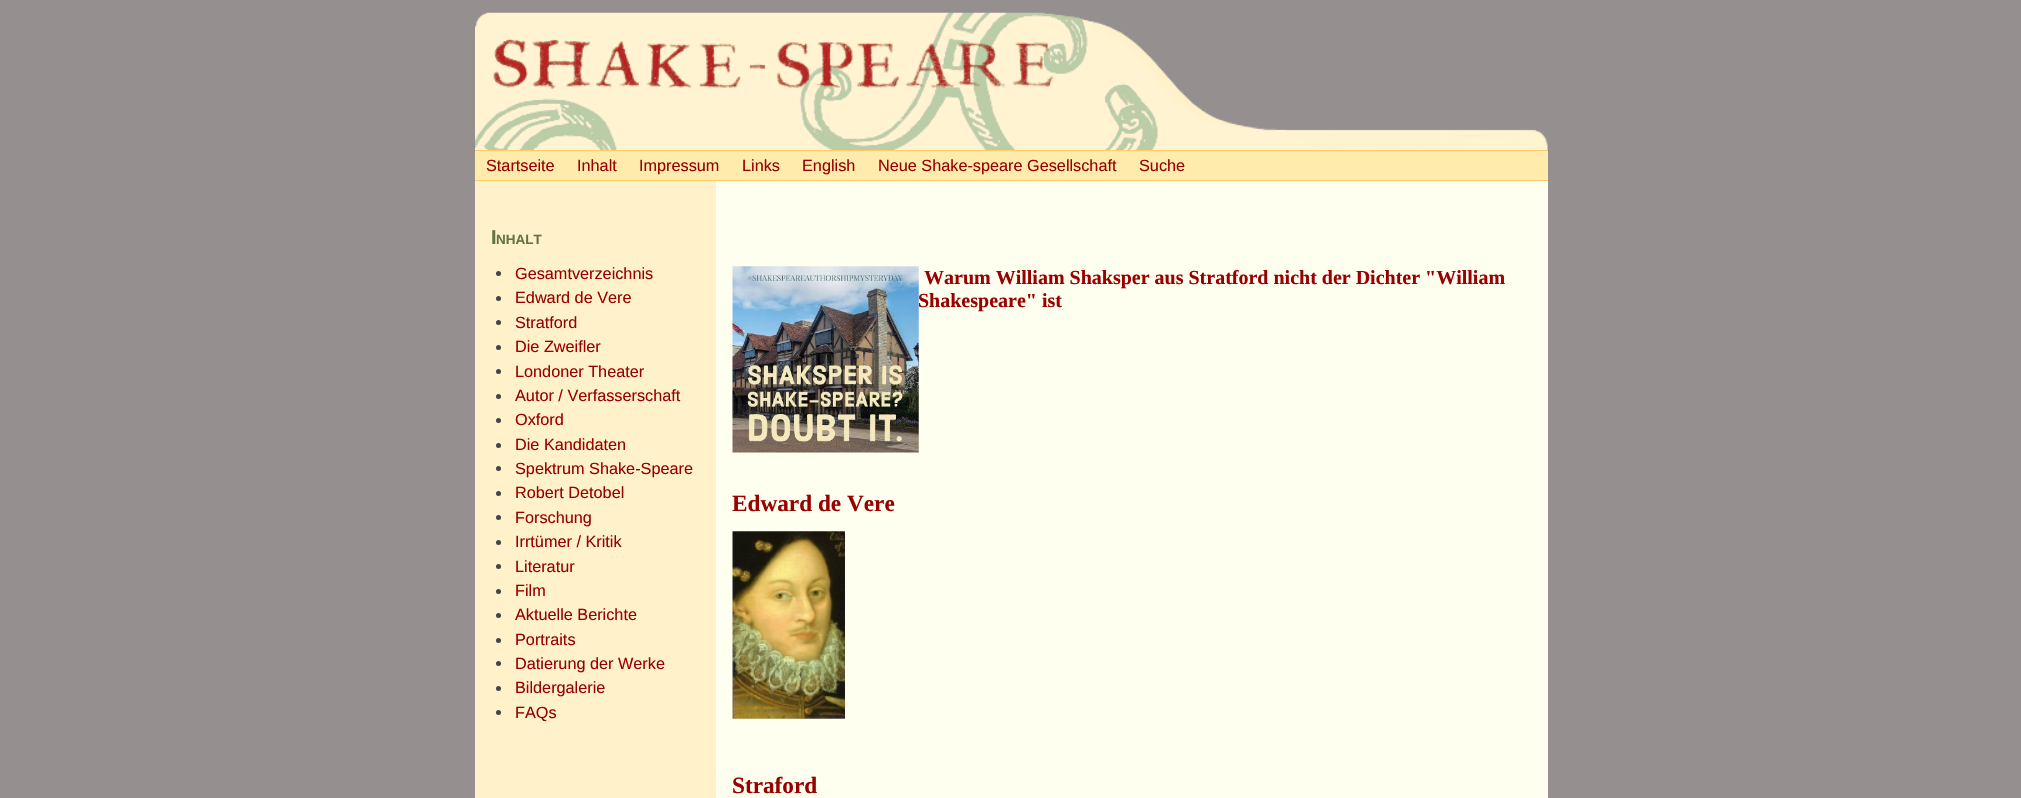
#include "include/core/SkBlurTypes.h"
#include "include/core/SkCanvas.h"
#include "include/core/SkData.h"
#include "include/core/SkFont.h"
#include "include/core/SkFontMgr.h"
#include "include/core/SkImage.h"
#include "include/core/SkMaskFilter.h"
#include "include/core/SkPaint.h"
#include "include/core/SkPathBuilder.h"
#include "include/core/SkTextBlob.h"
#include "include/effects/SkDashPathEffect.h"
#include "include/effects/SkGradientShader.h"
#include "include/utils/SkParsePath.h"

extern sk_sp<SkFontMgr> fontMgr;

void draw(SkCanvas* canvas) {
    SkPaint p;
    p.setAntiAlias(true);
    auto font = [&](const char* family, int weight, float size, bool italic = false) {
        SkFontStyle style(weight, SkFontStyle::kNormal_Width,
            italic ? SkFontStyle::kItalic_Slant : SkFontStyle::kUpright_Slant);
        SkFont result(fontMgr->matchFamilyStyle(family, style), size);
        result.setSubpixel(true);
        return result;
    };
    auto drawPhoto = [&](const char* path, float l, float t, float r, float b) {
        auto image = SkImages::DeferredFromEncodedData(SkData::MakeFromFileName(path));
        canvas->drawImageRect(image, SkRect::MakeLTRB(l, t, r, b), SkSamplingOptions());
    };
    canvas->clear(0xFF968F8F);
    drawPhoto("media/1.png", 1276, 129, 1548, 150);
    drawPhoto("media/2.png", 475, 12, 1286, 150);
    {
        const struct { float l, t, r, b; SkColor color; } items[] = {
            {475, 151, 1548, 180, 0xFFFFEBAB},
            {475, 150, 1548, 151, 0xFFFFCB6B},
            {475, 180, 1548, 181, 0xFFFFCB6B},
        };
        for (auto [l, t, r, b, color] : items) {
            p.setColor(color);
            canvas->drawRect(SkRect::MakeLTRB(l, t, r, b), p);
        }
    }
    auto font1 = font("Liberation Sans", 400, 16.25f);
    p.setColor(0xFF990000);
    {
        const struct { const char* s; float x, y; } items[] = {
            {"Startseite", 486, 171},
            {"Inhalt", 577, 171},
            {"Impressum", 639, 171},
            {"Links", 742, 171},
            {"English", 802, 171},
            {"Neue Shake-speare Gesellschaft", 878, 171},
            {"Suche", 1139, 171},
        };
        for (auto [s, x, y] : items) {
            canvas->drawString(s, x, y, font1, p);
        }
    }
    p.setColor(0xFFFFF2CB);
    canvas->drawRect(SkRect::MakeLTRB(475, 181, 716, 798), p);
    auto font2 = font("Liberation Sans", 700, 20);
    p.setColor(0xFF657246);
    canvas->drawString("I", 491, 244, font2, p);
    auto font3 = font("Liberation Sans", 700, 13.5f);
    canvas->drawString("NHALT", 496, 244, font3, p);
    p.setColor(0xFF444444);
    canvas->drawCircle(498.5f, 273.5f, 2.5f, p);
    p.setColor(0xFF990000);
    canvas->drawString("Gesamtverzeichnis", 515, 279, font1, p);
    p.setColor(0xFF444444);
    canvas->drawCircle(498.5f, 298.5f, 2.5f, p);
    p.setColor(0xFF990000);
    canvas->drawString("Edward de Vere", 515, 303, font1, p);
    p.setColor(0xFF444444);
    canvas->drawCircle(498.5f, 322.5f, 2.5f, p);
    p.setColor(0xFF990000);
    canvas->drawString("Stratford", 515, 328, font1, p);
    p.setColor(0xFF444444);
    canvas->drawCircle(498.5f, 347.5f, 2.5f, p);
    p.setColor(0xFF990000);
    canvas->drawString("Die Zweifler", 515, 352, font1, p);
    p.setColor(0xFF444444);
    canvas->drawCircle(498.5f, 371.5f, 2.5f, p);
    p.setColor(0xFF990000);
    canvas->drawString("Londoner Theater", 515, 377, font1, p);
    p.setColor(0xFF444444);
    canvas->drawCircle(498.5f, 396.5f, 2.5f, p);
    p.setColor(0xFF990000);
    canvas->drawString("Autor / Verfasserschaft", 515, 401, font1, p);
    p.setColor(0xFF444444);
    canvas->drawCircle(498.5f, 420.5f, 2.5f, p);
    p.setColor(0xFF990000);
    canvas->drawString("Oxford", 515, 425, font1, p);
    p.setColor(0xFF444444);
    canvas->drawCircle(498.5f, 445.5f, 2.5f, p);
    p.setColor(0xFF990000);
    canvas->drawString("Die Kandidaten", 515, 450, font1, p);
    p.setColor(0xFF444444);
    canvas->drawCircle(498.5f, 468.5f, 2.5f, p);
    p.setColor(0xFF990000);
    canvas->drawString("Spektrum Shake-Speare", 515, 474, font1, p);
    p.setColor(0xFF444444);
    canvas->drawCircle(498.5f, 493.5f, 2.5f, p);
    p.setColor(0xFF990000);
    canvas->drawString("Robert Detobel", 515, 498, font1, p);
    p.setColor(0xFF444444);
    canvas->drawCircle(498.5f, 517.5f, 2.5f, p);
    p.setColor(0xFF990000);
    canvas->drawString("Forschung", 515, 523, font1, p);
    p.setColor(0xFF444444);
    canvas->drawCircle(498.5f, 542.5f, 2.5f, p);
    p.setColor(0xFF990000);
    canvas->drawString("Irrtümer / Kritik", 515, 547, font1, p);
    p.setColor(0xFF444444);
    canvas->drawCircle(498.5f, 566.5f, 2.5f, p);
    p.setColor(0xFF990000);
    canvas->drawString("Literatur", 515, 572, font1, p);
    p.setColor(0xFF444444);
    canvas->drawCircle(498.5f, 591.5f, 2.5f, p);
    p.setColor(0xFF990000);
    canvas->drawString("Film", 515, 596, font1, p);
    p.setColor(0xFF444444);
    canvas->drawCircle(498.5f, 615.5f, 2.5f, p);
    p.setColor(0xFF990000);
    canvas->drawString("Aktuelle Berichte", 515, 620, font1, p);
    p.setColor(0xFF444444);
    canvas->drawCircle(498.5f, 640.5f, 2.5f, p);
    p.setColor(0xFF990000);
    canvas->drawString("Portraits", 515, 645, font1, p);
    p.setColor(0xFF444444);
    canvas->drawCircle(498.5f, 663.5f, 2.5f, p);
    p.setColor(0xFF990000);
    canvas->drawString("Datierung der Werke", 515, 669, font1, p);
    p.setColor(0xFF444444);
    canvas->drawCircle(498.5f, 688.5f, 2.5f, p);
    p.setColor(0xFF990000);
    canvas->drawString("Bildergalerie", 515, 693, font1, p);
    p.setColor(0xFF444444);
    canvas->drawCircle(498.5f, 712.5f, 2.5f, p);
    p.setColor(0xFF990000);
    canvas->drawString("FAQs", 515, 718, font1, p);
    p.setColor(0xFFFFFFF0);
    canvas->drawRect(SkRect::MakeLTRB(716, 181, 1548, 798), p);
    drawPhoto("media/3.png", 732, 266, 919, 453);
    auto font4 = font("Liberation Serif", 700, 20);
    p.setColor(0xFF990000);
    canvas->drawString("Warum William Shaksper aus Stratford nicht der Dichter \"William", 924, 284, font4, p);
    canvas->drawString("Shakespeare\" ist", 918, 307, font4, p);
    auto font5 = font("Liberation Serif", 700, 23.25f);
    canvas->drawString("Edward de Vere", 732, 511, font5, p);
    drawPhoto("media/4.png", 732, 531, 845, 719);
    canvas->drawString("Straford", 732, 793, font5, p);
}
